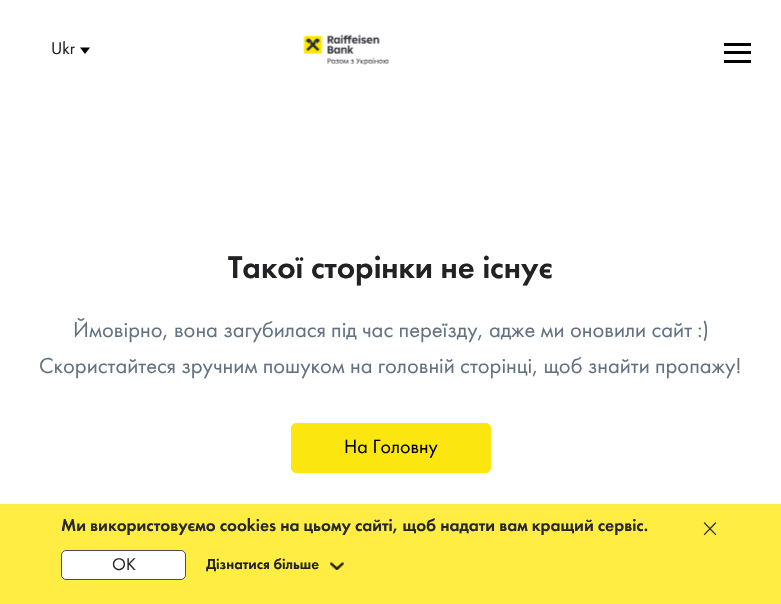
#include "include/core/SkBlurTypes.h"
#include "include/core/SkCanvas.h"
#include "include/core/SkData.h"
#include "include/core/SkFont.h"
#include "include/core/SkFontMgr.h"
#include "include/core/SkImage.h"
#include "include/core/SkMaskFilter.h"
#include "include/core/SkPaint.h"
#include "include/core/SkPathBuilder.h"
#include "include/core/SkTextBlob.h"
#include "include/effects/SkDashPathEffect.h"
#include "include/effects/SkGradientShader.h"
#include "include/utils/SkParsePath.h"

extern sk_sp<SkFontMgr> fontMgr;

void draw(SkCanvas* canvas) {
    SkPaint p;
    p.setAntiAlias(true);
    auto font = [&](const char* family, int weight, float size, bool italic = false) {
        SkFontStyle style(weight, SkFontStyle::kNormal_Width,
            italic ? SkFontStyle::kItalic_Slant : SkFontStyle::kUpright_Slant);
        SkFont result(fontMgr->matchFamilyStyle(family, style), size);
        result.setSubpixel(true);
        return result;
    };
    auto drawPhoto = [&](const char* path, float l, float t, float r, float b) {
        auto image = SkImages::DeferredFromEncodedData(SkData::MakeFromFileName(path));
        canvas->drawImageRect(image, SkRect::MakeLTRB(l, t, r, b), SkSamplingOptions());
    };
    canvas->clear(0xFFFFFFFF);
    auto font1 = font("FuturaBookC", 400, 17.5f);
    p.setColor(0xFF212225);
    canvas->drawString("Ukr", 51, 54, font1, p);
    p.setColor(0xFF000000);
    canvas->drawPath(SkPathBuilder().moveTo(80, 47.5f).lineTo(90, 47.5f).lineTo(85, 54).close().detach(), p);
    drawPhoto("media/1.png", 303, 34, 389, 65);
    {
        const struct { float l, t, r, b; SkColor color; } items[] = {
            {724, 43, 751, 46, 0xFF000000},
            {724, 51, 751, 54, 0xFF000000},
            {724, 60, 751, 63, 0xFF000000},
        };
        for (auto [l, t, r, b, color] : items) {
            p.setColor(color);
            canvas->drawRect(SkRect::MakeLTRB(l, t, r, b), p);
        }
    }
    auto font2 = font("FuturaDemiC", 600, 32.5f);
    p.setColor(0xFF212225);
    canvas->drawString("Такої сторінки не існує", 228, 278, font2, p);
    auto font3 = font("FuturaBookC", 400, 22.5f);
    p.setColor(0xFF637282);
    canvas->drawString("Ймовірно, вона загубилася під час переїзду, адже ми оновили сайт :)", 73, 337, font3, p);
    canvas->drawString("Скористайтеся зручним пошуком на головній сторінці, щоб знайти пропажу!", 39, 373, font3, p);
    p.setColor(0xFFFCE610);
    canvas->drawRoundRect(SkRect::MakeLTRB(291.5f, 423.5f, 490.5f, 472.5f), 4.5f, 4.5f, p);
    p.setStyle(SkPaint::kStroke_Style);
    p.setStrokeWidth(1);
    canvas->drawRoundRect(SkRect::MakeLTRB(291.5f, 423.5f, 490.5f, 472.5f), 4.5f, 4.5f, p);
    auto font4 = font("FuturaBookC", 400, 20);
    p.setStyle(SkPaint::kFill_Style);
    p.setColor(0xFF000000);
    canvas->drawString("На Головну", 344, 453, font4, p);
    p.setColor(0xFFFFED43);
    canvas->drawRect(SkRect::MakeLTRB(0, 504, 781, 604), p);
    auto font5 = font("FuturaDemiC", 600, 17.5f);
    p.setColor(0xFF27282D);
    canvas->drawString("Ми використовуємо cookies на цьому сайті, щоб надати вам кращий сервіс.", 61, 531, font5, p);
    p.setColor(0xFFFFFFFF);
    canvas->drawRoundRect(SkRect::MakeLTRB(61, 550, 186, 580), 5, 5, p);
    p.setStyle(SkPaint::kStroke_Style);
    p.setColor(0xB3000000);
    canvas->drawRoundRect(SkRect::MakeLTRB(61.5f, 550.5f, 185.5f, 579.5f), 4.5f, 4.5f, p);
    p.setStyle(SkPaint::kFill_Style);
    p.setColor(0xFF27282D);
    canvas->drawString("ОК", 112, 570, font1, p);
    auto font6 = font("FuturaDemiC", 600, 15);
    p.setColor(0xFF212225);
    canvas->drawString("Дізнатися більше", 206, 569, font6, p);
    drawPhoto("media/2.png", 329, 562, 344, 570);
    p.setStyle(SkPaint::kStroke_Style);
    p.setStrokeWidth(1.2f);
    p.setStrokeCap(SkPaint::kSquare_Cap);
    p.setColor(0xFF27282D);
    canvas->drawPath(SkPathBuilder().moveTo(704.5f, 534.5f).lineTo(715.5f, 523).moveTo(704.5f, 523).lineTo(715.5f, 534.5f).detach(), p);
}
